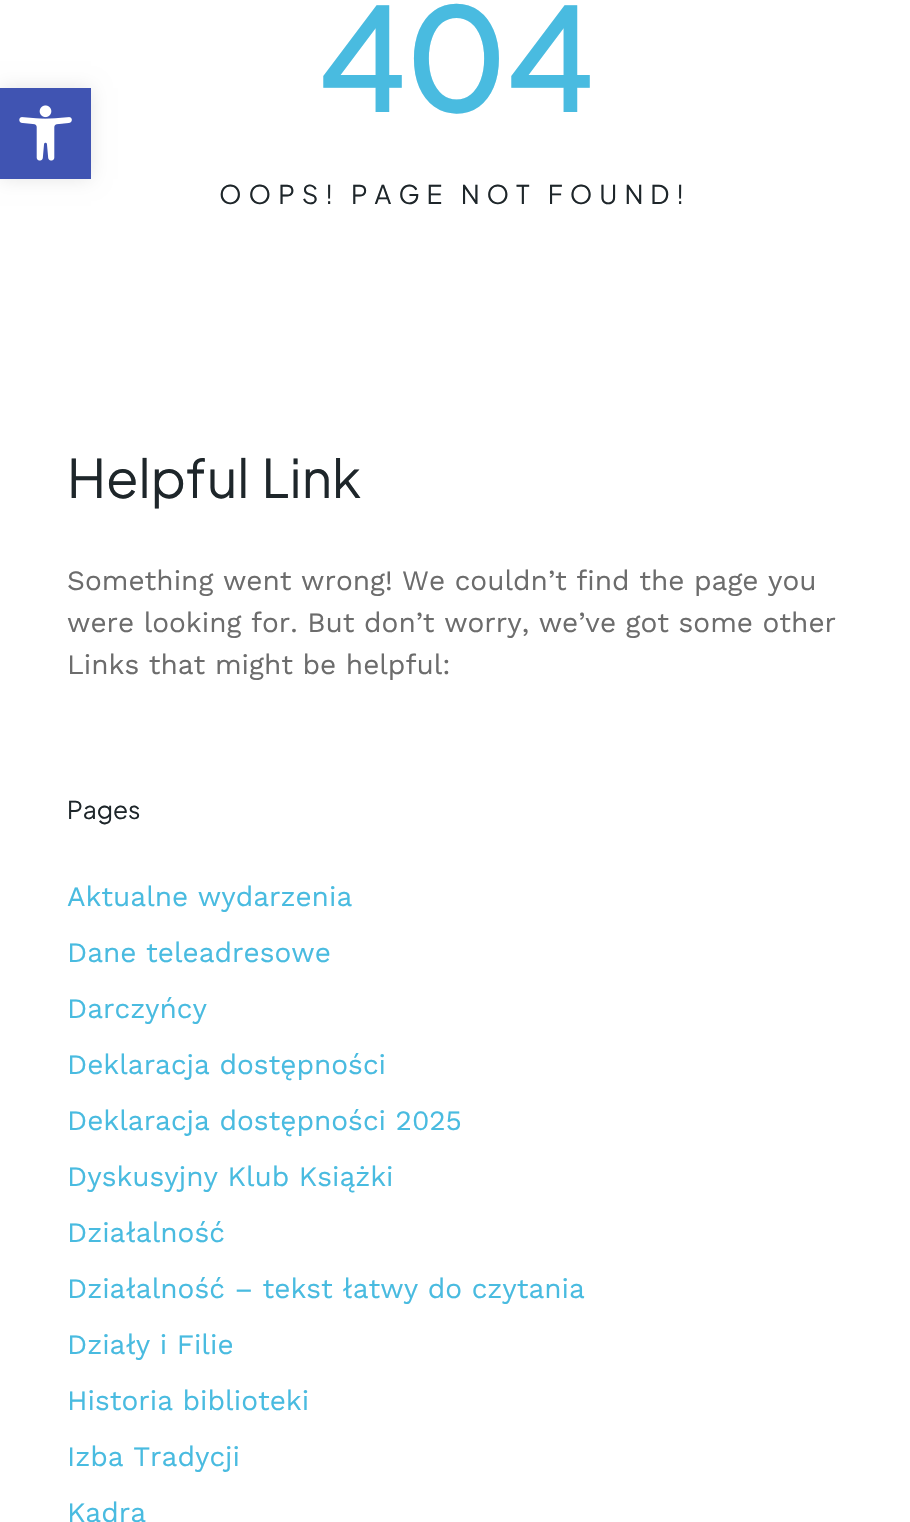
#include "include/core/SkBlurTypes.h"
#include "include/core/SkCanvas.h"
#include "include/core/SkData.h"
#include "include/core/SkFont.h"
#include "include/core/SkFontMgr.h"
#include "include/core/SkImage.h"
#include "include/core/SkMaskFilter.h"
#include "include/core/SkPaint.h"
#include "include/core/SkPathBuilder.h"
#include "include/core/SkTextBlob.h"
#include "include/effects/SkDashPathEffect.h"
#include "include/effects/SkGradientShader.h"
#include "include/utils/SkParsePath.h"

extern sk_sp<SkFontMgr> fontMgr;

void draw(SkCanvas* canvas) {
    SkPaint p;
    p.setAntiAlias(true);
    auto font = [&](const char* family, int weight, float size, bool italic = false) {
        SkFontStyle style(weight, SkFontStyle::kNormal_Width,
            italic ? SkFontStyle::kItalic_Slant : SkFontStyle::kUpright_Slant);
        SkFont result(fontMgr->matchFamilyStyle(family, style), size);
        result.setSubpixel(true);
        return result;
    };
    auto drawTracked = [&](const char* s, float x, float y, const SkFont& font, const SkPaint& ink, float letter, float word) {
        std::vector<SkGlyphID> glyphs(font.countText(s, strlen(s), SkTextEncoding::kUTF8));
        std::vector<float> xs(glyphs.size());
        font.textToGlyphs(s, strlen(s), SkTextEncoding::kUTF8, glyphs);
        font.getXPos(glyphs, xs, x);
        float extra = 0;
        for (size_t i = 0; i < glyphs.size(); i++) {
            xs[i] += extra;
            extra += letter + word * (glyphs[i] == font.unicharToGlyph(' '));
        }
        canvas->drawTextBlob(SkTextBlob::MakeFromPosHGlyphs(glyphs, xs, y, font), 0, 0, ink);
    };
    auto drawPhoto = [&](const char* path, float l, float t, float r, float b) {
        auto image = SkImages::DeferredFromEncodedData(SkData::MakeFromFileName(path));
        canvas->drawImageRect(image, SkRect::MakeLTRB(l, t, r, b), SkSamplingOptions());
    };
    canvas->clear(0xFFFFFFFF);
    p.setColor(0x1A000000);
    p.setMaskFilter(SkMaskFilter::MakeBlur(kNormal_SkBlurStyle, 9));
    canvas->drawRect(SkRect::MakeLTRB(0, 88, 91, 179), p);
    p.setMaskFilter(nullptr);
    p.setColor(0xFF4054B2);
    canvas->drawRect(SkRect::MakeLTRB(0, 88, 91, 179), p);
    drawPhoto("media/1.png", 19, 105, 72, 161);
    auto font1 = font("Plus Jakarta Sans", 700, 138);
    p.setColor(0xFF49BBE0);
    canvas->drawString("404", 317, 112, font1, p);
    auto font2 = font("Plus Jakarta Sans", 400, 25.75f);
    p.setColor(0xFF1E262A);
    drawTracked("OOPS! PAGE NOT FOUND!", 219, 204, font2, p, 7, 0);
    auto font3 = font("Plus Jakarta Sans", 400, 53);
    drawTracked("Helpful Link", 67, 498, font3, p, 0, 3);
    auto font4 = font("Work Sans", 400, 28);
    p.setColor(0xFF6C6C6C);
    {
        const struct { const char* s; float x, y; } items[] = {
            {"Something went wrong! We couldn’t find the page you", 67, 590},
            {"were looking for. But don’t worry, we’ve got some other", 67, 632},
            {"Links that might be helpful:", 67, 674},
        };
        for (auto [s, x, y] : items) {
            canvas->drawString(s, x, y, font4, p);
        }
    }
    auto font5 = font("Plus Jakarta Sans", 400, 24.5f);
    p.setColor(0xFF1E262A);
    canvas->drawString("Pages", 67, 819, font5, p);
    p.setColor(0xFF49BBE0);
    {
        const struct { const char* s; float x, y; } items[] = {
            {"Aktualne wydarzenia", 67, 906},
            {"Dane teleadresowe", 67, 962},
            {"Darczyńcy", 67, 1018},
            {"Deklaracja dostępności", 67, 1074},
            {"Deklaracja dostępności 2025", 67, 1130},
            {"Dyskusyjny Klub Książki", 67, 1186},
            {"Działalność", 67, 1242},
            {"Działalność – tekst łatwy do czytania", 67, 1298},
            {"Działy i Filie", 67, 1354},
            {"Historia biblioteki", 67, 1410},
            {"Izba Tradycji", 67, 1466},
            {"Kadra", 67, 1522},
        };
        for (auto [s, x, y] : items) {
            canvas->drawString(s, x, y, font4, p);
        }
    }
}
